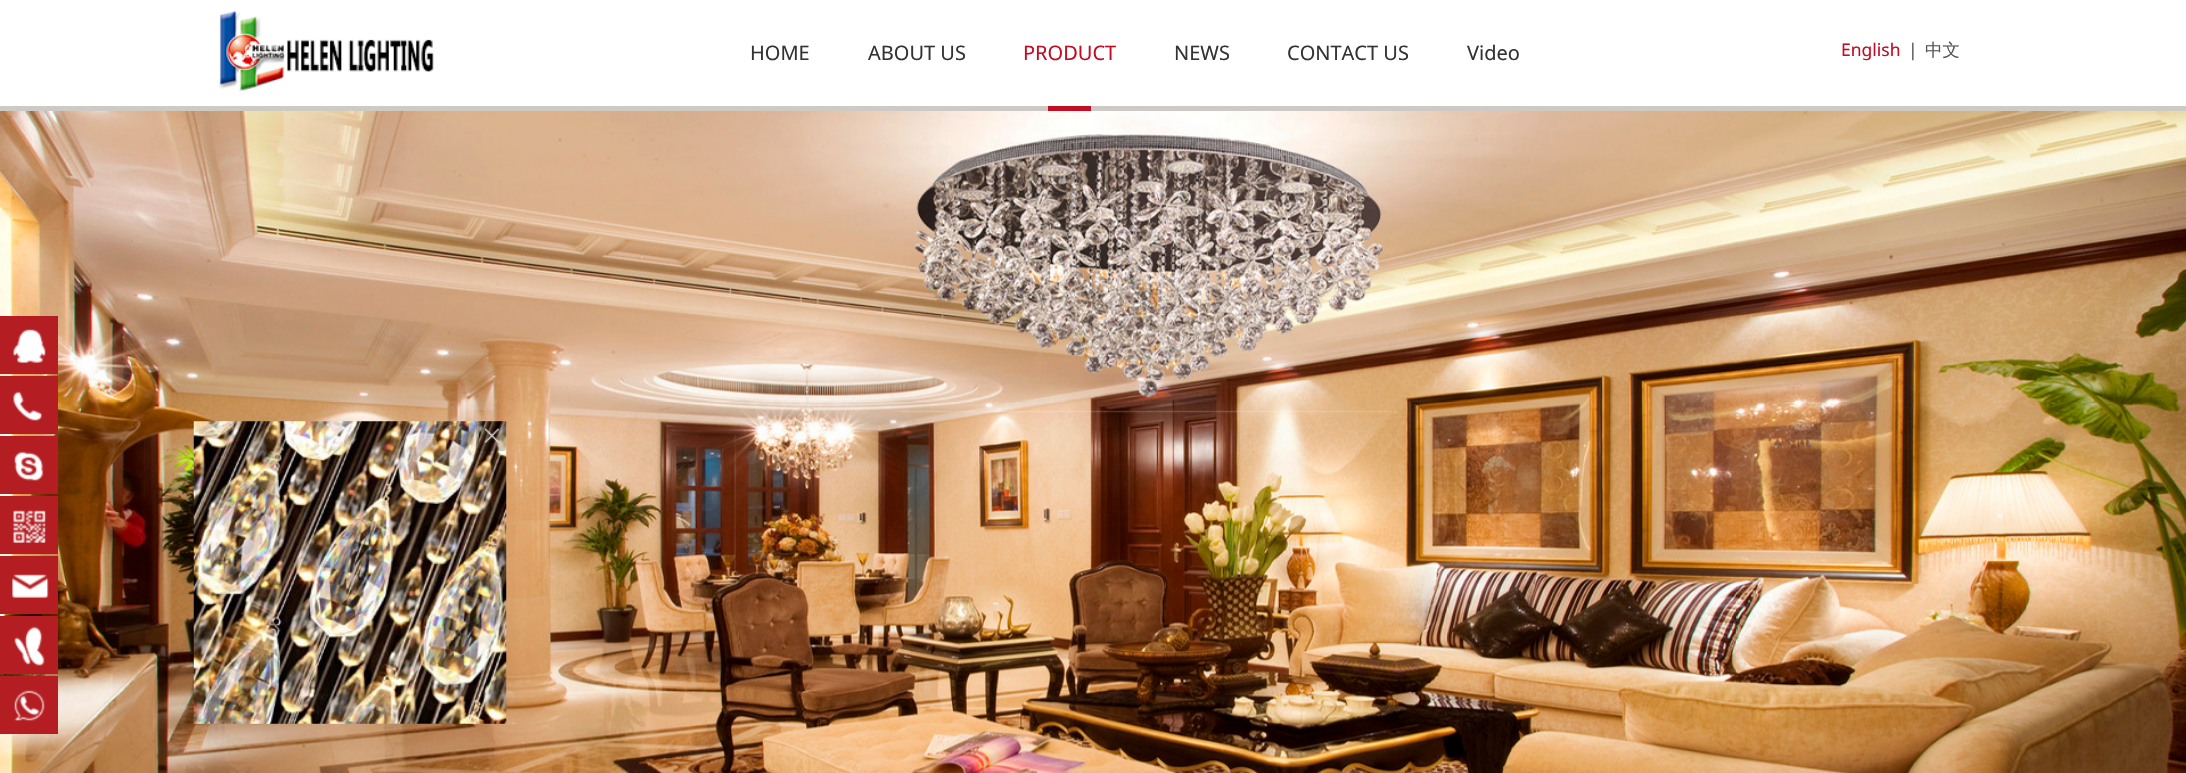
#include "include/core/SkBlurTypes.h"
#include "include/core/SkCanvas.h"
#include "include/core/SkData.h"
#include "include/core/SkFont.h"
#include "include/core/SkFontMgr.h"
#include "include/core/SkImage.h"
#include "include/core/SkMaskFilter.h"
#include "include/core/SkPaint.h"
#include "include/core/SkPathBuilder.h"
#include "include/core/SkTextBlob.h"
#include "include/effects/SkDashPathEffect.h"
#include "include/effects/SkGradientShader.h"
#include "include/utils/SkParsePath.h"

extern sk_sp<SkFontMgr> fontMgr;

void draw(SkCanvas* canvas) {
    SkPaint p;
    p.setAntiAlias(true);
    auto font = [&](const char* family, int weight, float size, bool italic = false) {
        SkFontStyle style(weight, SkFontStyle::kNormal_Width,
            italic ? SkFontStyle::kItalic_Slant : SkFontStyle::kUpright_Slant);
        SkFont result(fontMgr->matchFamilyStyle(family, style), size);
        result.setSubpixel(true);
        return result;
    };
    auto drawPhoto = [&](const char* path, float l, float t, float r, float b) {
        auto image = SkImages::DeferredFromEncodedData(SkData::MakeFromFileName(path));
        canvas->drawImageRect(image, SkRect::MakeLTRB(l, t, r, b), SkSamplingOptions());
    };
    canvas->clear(0xFFFFFFFF);
    p.setColor(0xFFCDC9C5);
    canvas->drawRect(SkRect::MakeLTRB(0, 106, 2186, 111), p);
    drawPhoto("media/1.png", 219, 11, 434, 92);
    auto font1 = font("Noto Sans", 400, 20);
    p.setColor(0xFF333333);
    canvas->drawString("HOME", 750, 60, font1, p);
    canvas->drawString("ABOUT US", 868, 60, font1, p);
    p.setColor(0xFFC30D23);
    canvas->drawString("PRODUCT", 1023, 60, font1, p);
    canvas->drawRect(SkRect::MakeLTRB(1048, 106, 1091, 111), p);
    p.setColor(0xFF333333);
    {
        const struct { const char* s; float x, y; } items[] = {
            {"NEWS", 1174, 60},
            {"CONTACT US", 1287, 60},
            {"Video", 1467, 60},
        };
        for (auto [s, x, y] : items) {
            canvas->drawString(s, x, y, font1, p);
        }
    }
    auto font2 = font("Noto Sans", 400, 17.5f);
    p.setColor(0xFFC30D23);
    canvas->drawString("English", 1841, 56, font2, p);
    p.setColor(0xFF555555);
    canvas->drawString("|", 1908, 56, font2, p);
    auto font3 = font("WenQuanYi Zen Hei", 500, 17.5f);
    canvas->drawString("中文", 1925, 56, font3, p);
    drawPhoto("media/2.png", 0, 111, 2186, 773);
    p.setColor(0xFFB41E23);
    canvas->drawRect(SkRect::MakeLTRB(0, 316, 58, 374), p);
    drawPhoto("media/3.png", 13, 329, 46, 363);
    canvas->drawRect(SkRect::MakeLTRB(0, 376, 58, 434), p);
    drawPhoto("media/4.png", 13, 391, 43, 421);
    canvas->drawRect(SkRect::MakeLTRB(0, 436, 58, 494), p);
    drawPhoto("media/5.png", 14, 451, 44, 481);
    canvas->drawRect(SkRect::MakeLTRB(0, 496, 58, 554), p);
    drawPhoto("media/6.png", 13, 510, 46, 543);
    canvas->drawRect(SkRect::MakeLTRB(0, 556, 58, 614), p);
    drawPhoto("media/7.png", 12, 574, 49, 598);
    canvas->drawRect(SkRect::MakeLTRB(0, 616, 58, 674), p);
    drawPhoto("media/8.png", 14, 626, 45, 666);
    canvas->drawRect(SkRect::MakeLTRB(0, 676, 58, 734), p);
    drawPhoto("media/9.png", 14, 690, 45, 721);
    drawPhoto("media/10.png", 193, 421, 507, 724);
    p.setColor(0x33000000);
    canvas->drawRoundRect(SkRect::MakeLTRB(476, 421, 506, 451), 2.5f, 2.5f, p);
    drawPhoto("media/11.png", 484, 428, 499, 443);
}
